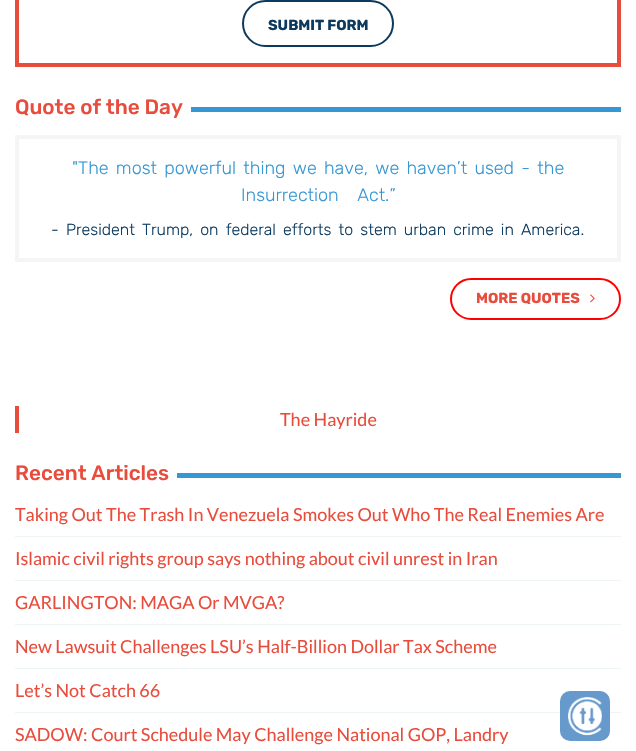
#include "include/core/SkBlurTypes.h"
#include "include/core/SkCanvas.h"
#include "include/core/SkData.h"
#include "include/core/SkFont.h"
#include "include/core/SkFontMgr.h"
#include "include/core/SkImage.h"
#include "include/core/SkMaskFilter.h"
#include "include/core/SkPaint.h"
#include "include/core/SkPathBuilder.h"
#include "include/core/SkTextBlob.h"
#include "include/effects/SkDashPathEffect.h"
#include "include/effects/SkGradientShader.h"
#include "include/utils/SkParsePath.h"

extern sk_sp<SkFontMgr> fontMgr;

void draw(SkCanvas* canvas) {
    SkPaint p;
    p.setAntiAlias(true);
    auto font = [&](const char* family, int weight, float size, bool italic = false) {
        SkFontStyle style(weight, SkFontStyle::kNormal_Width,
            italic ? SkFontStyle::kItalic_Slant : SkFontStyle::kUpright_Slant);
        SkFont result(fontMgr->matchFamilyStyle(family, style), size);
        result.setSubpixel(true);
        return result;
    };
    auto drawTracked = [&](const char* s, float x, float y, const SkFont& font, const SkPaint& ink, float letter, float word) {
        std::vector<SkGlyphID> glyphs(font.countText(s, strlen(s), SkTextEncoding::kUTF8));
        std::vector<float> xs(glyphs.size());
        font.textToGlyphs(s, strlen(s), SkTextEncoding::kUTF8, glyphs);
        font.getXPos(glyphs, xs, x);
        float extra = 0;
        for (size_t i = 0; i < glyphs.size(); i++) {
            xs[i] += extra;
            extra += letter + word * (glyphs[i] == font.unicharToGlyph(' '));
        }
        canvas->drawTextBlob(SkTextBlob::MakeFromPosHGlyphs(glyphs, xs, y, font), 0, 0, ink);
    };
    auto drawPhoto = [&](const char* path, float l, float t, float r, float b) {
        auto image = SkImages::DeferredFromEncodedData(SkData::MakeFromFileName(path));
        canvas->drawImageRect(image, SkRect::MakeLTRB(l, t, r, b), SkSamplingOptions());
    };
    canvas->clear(0xFFFFFFFF);
    p.setStyle(SkPaint::kStroke_Style);
    p.setStrokeWidth(4);
    p.setColor(0xFFE84C3C);
    canvas->drawRect(SkRect::MakeLTRB(17, -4, 619, 65), p);
    p.setStrokeWidth(2);
    p.setColor(0xFF0C3A5E);
    canvas->drawRoundRect(SkRect::MakeLTRB(243, 1, 393, 46), 22.5f, 22.5f, p);
    auto font1 = font("Rubik", 700, 14.5f);
    p.setStyle(SkPaint::kFill_Style);
    canvas->drawString("SUBMIT FORM", 268, 30, font1, p);
    auto font2 = font("Rubik", 500, 20.75f);
    p.setColor(0xFFE84C3C);
    canvas->drawString("Quote of the Day", 15, 114, font2, p);
    p.setColor(0xFF3597D3);
    canvas->drawRect(SkRect::MakeLTRB(191, 107, 621, 112), p);
    p.setStyle(SkPaint::kStroke_Style);
    p.setStrokeWidth(4);
    p.setColor(0xFFF5F5F5);
    canvas->drawRect(SkRect::MakeLTRB(17, 137, 619, 260), p);
    auto font3 = font("Rubik", 300, 18);
    p.setStyle(SkPaint::kFill_Style);
    p.setColor(0xFF3597D3);
    drawTracked("\"The most powerful thing we have, we haven’t used - the", 72, 174, font3, p, 0, 2.6f);
    drawTracked("Insurrection Act.”", 241, 201, font3, p, 0, 14);
    auto font4 = font("Rubik", 300, 16);
    p.setColor(0xFF0C3A5E);
    drawTracked("- President Trump, on federal efforts to stem urban crime in America.", 51, 235, font4, p, 0, 3);
    p.setStyle(SkPaint::kStroke_Style);
    p.setStrokeWidth(2);
    p.setColor(0xFFFF0000);
    canvas->drawRoundRect(SkRect::MakeLTRB(451, 279, 620, 319), 20, 20, p);
    p.setStyle(SkPaint::kFill_Style);
    p.setColor(0xFFE84C3C);
    canvas->drawString("MORE QUOTES", 476, 303, font1, p);
    drawPhoto("media/1.png", 590, 294, 595, 303);
    canvas->drawRect(SkRect::MakeLTRB(15, 406, 19, 433), p);
    auto font5 = font("Lato", 400, 18);
    canvas->drawString("The Hayride", 280, 426, font5, p);
    canvas->drawString("Recent Articles", 15, 480, font2, p);
    p.setColor(0xFF3597D3);
    canvas->drawRect(SkRect::MakeLTRB(177, 473, 621, 478), p);
    p.setColor(0xFFEEF3F5);
    canvas->drawRect(SkRect::MakeLTRB(15, 536, 621, 537), p);
    p.setColor(0xFFE84C3C);
    canvas->drawString("Taking Out The Trash In Venezuela Smokes Out Who The Real Enemies Are", 15, 521, font5, p);
    p.setColor(0xFFEEF3F5);
    canvas->drawRect(SkRect::MakeLTRB(15, 580, 621, 581), p);
    p.setColor(0xFFE84C3C);
    canvas->drawString("Islamic civil rights group says nothing about civil unrest in Iran", 15, 565, font5, p);
    p.setColor(0xFFEEF3F5);
    canvas->drawRect(SkRect::MakeLTRB(15, 624, 621, 625), p);
    p.setColor(0xFFE84C3C);
    canvas->drawString("GARLINGTON: MAGA Or MVGA?", 15, 609, font5, p);
    p.setColor(0xFFEEF3F5);
    canvas->drawRect(SkRect::MakeLTRB(15, 668, 621, 669), p);
    p.setColor(0xFFE84C3C);
    canvas->drawString("New Lawsuit Challenges LSU’s Half-Billion Dollar Tax Scheme", 15, 653, font5, p);
    p.setColor(0xFFEEF3F5);
    canvas->drawRect(SkRect::MakeLTRB(15, 712, 621, 713), p);
    p.setColor(0xFFE84C3C);
    canvas->drawString("Let’s Not Catch 66", 15, 697, font5, p);
    canvas->drawString("SADOW: Court Schedule May Challenge National GOP, Landry", 15, 741, font5, p);
    p.setColor(0xFF6699CC);
    canvas->drawRoundRect(SkRect::MakeLTRB(560, 691, 610, 741), 10, 10, p);
    drawPhoto("media/2.png", 568, 697, 602, 736);
}
